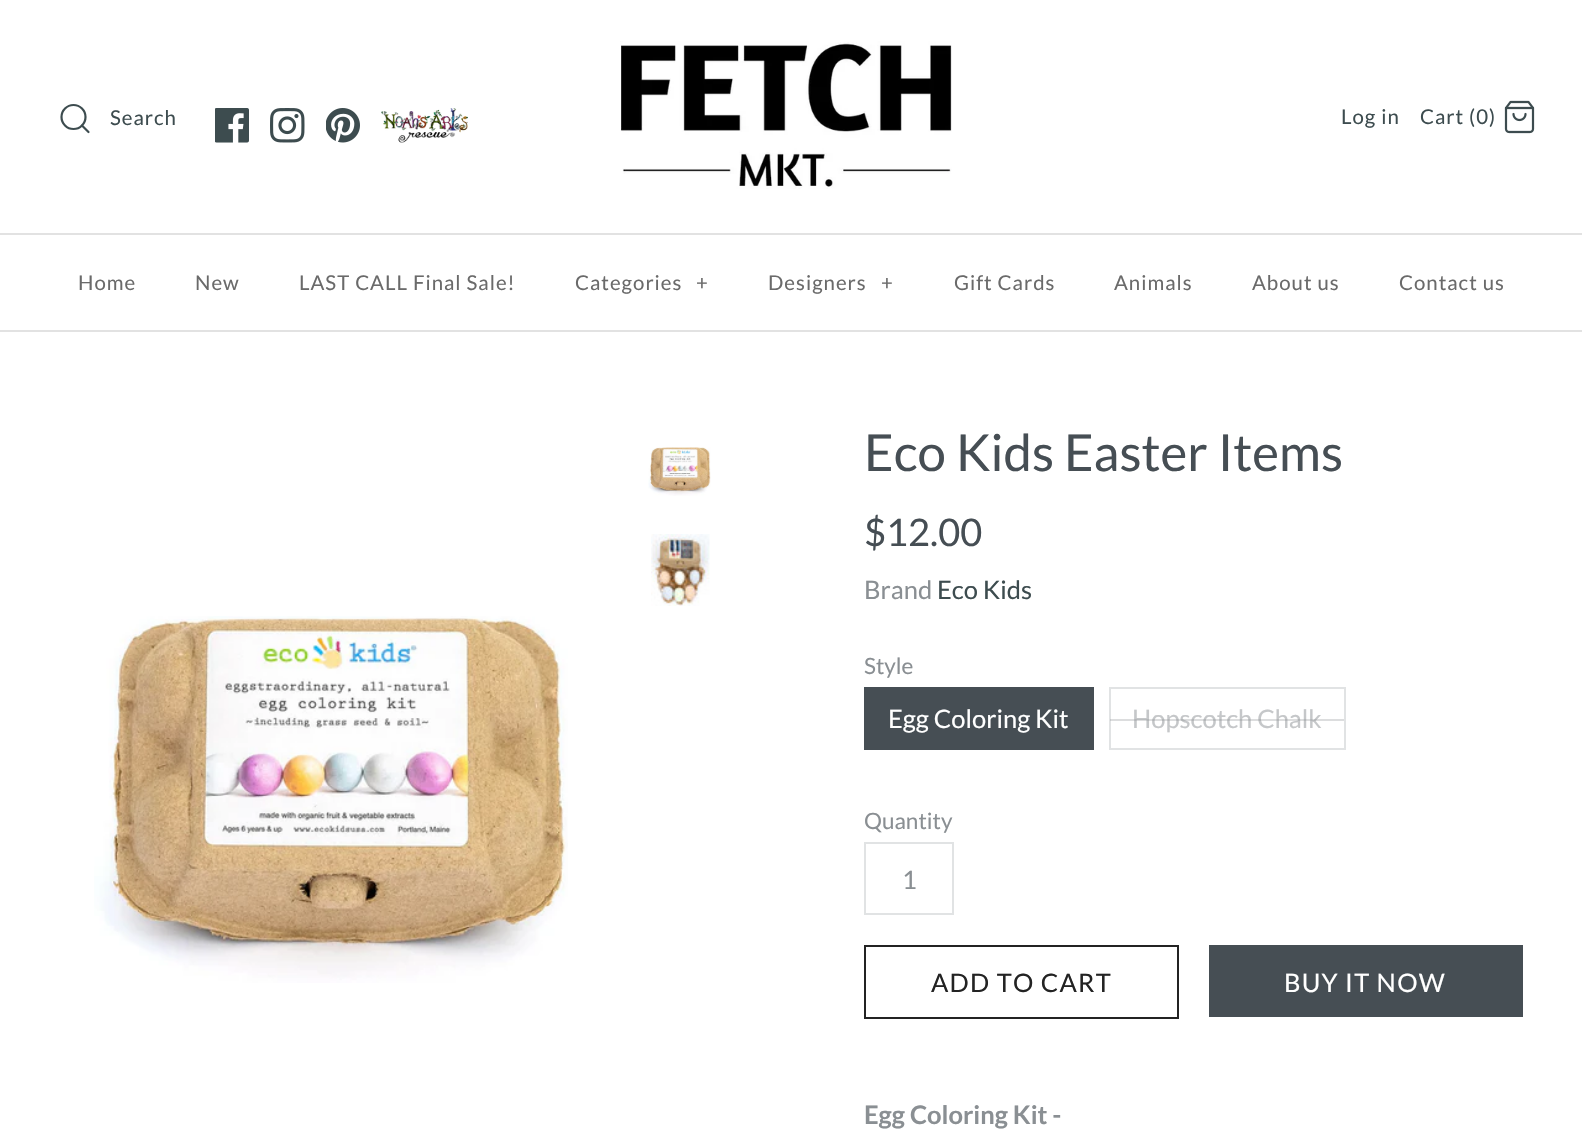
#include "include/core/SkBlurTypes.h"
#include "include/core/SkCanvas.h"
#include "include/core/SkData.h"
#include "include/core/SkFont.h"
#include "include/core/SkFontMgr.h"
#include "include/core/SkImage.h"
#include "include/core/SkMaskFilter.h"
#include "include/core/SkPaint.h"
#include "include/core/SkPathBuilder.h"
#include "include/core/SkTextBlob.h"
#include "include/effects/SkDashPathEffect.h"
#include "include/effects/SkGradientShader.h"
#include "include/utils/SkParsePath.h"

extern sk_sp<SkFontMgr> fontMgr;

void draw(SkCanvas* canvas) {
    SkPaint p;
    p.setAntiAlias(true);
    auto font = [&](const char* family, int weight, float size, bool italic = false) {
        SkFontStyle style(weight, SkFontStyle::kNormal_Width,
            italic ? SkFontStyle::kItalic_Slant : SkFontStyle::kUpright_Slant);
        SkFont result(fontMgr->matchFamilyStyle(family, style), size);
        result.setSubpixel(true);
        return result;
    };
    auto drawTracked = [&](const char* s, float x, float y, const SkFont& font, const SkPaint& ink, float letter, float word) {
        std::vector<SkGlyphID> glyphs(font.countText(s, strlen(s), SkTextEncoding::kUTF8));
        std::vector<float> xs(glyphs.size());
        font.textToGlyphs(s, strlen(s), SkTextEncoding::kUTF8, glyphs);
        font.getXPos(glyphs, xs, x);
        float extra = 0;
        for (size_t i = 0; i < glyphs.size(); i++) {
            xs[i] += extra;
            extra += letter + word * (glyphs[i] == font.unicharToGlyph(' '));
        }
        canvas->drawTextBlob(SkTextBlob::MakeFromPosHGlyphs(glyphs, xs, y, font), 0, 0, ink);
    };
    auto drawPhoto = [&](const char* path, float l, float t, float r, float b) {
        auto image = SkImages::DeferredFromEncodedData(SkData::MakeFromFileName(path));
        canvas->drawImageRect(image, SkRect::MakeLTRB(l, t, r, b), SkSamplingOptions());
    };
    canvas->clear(0xFFFFFFFF);
    drawPhoto("media/1.png", 620, 41, 952, 189);
    p.setStyle(SkPaint::kStroke_Style);
    p.setStrokeWidth(2.2f);
    p.setColor(0xFF3D4C4F);
    canvas->drawCircle(73.5f, 117, 12, p);
    p.setStrokeCap(SkPaint::kRound_Cap);
    p.setStrokeJoin(SkPaint::kRound_Join);
    canvas->drawPath(SkPathBuilder().moveTo(88.5f, 132).lineTo(82, 125.5f).detach(), p);
    auto font1 = font("Lato", 400, 20.4f);
    p.setStyle(SkPaint::kFill_Style);
    drawTracked("Search", 110, 125, font1, p, 1, 0);
    drawPhoto("media/2.png", 215, 108, 249, 143);
    drawPhoto("media/3.png", 270, 108, 305, 143);
    drawPhoto("media/4.png", 326, 108, 360, 143);
    drawPhoto("media/5.png", 381, 108, 468, 143);
    drawTracked("Log in", 1341, 124, font1, p, 1, 0);
    drawTracked("Cart (0)", 1420, 124, font1, p, 1, 0);
    drawPhoto("media/6.png", 1504, 100, 1535, 134);
    p.setColor(0xFFE2E2E2);
    canvas->drawRect(SkRect::MakeLTRB(0, 330, 1582, 332), p);
    canvas->drawRect(SkRect::MakeLTRB(0, 233, 1582, 235), p);
    p.setColor(0xFF6A6A6A);
    {
        const struct { const char* s; float x, y; } items[] = {
            {"Home", 78, 290},
            {"New", 195, 290},
            {"LAST CALL Final Sale!", 299, 290},
            {"Categories", 575, 290},
            {"+", 696, 290},
            {"Designers", 768, 290},
            {"+", 881, 290},
            {"Gift Cards", 954, 290},
            {"Animals", 1114, 290},
            {"About us", 1252, 290},
            {"Contact us", 1399, 290},
        };
        for (auto [s, x, y] : items) {
            drawTracked(s, x, y, font1, p, 1, 0);
        }
    }
    drawPhoto("media/7.png", 648, 447, 711, 496);
    drawPhoto("media/8.png", 651, 534, 710, 606);
    drawPhoto("media/9.png", 94, 616, 568, 983);
    auto font2 = font("Lato", 400, 51);
    p.setColor(0xFF464E54);
    canvas->drawString("Eco Kids Easter Items", 864, 471, font2, p);
    auto font3 = font("Lato", 400, 38);
    canvas->drawString("$12.00", 864, 546, font3, p);
    auto font4 = font("Lato", 400, 25.5f);
    p.setColor(0xFF8A8F93);
    canvas->drawString("Brand", 864, 599, font4, p);
    p.setColor(0xFF3D4C4F);
    canvas->drawString("Eco Kids", 937, 599, font4, p);
    auto font5 = font("Lato", 400, 22.5f);
    p.setColor(0xFF8A8F93);
    canvas->drawString("Style", 864, 674, font5, p);
    p.setColor(0xFF464E54);
    canvas->drawRect(SkRect::MakeLTRB(864, 687, 1094, 750), p);
    p.setColor(0xFFFFFFFF);
    canvas->drawString("Egg Coloring Kit", 888, 728, font4, p);
    p.setStyle(SkPaint::kStroke_Style);
    p.setStrokeWidth(2);
    p.setStrokeCap(SkPaint::kButt_Cap);
    p.setStrokeJoin(SkPaint::kMiter_Join);
    p.setColor(0xFFE1E3E4);
    canvas->drawRect(SkRect::MakeLTRB(1110, 688, 1345, 749), p);
    p.setStyle(SkPaint::kFill_Style);
    p.setColor(0xFFC5C7C9);
    canvas->drawString("Hopscotch Chalk", 1132, 728, font4, p);
    p.setColor(0x4D8A8F93);
    canvas->drawRect(SkRect::MakeLTRB(1110, 719, 1344, 721), p);
    p.setColor(0xFF8A8F93);
    canvas->drawString("Quantity", 864, 829, font5, p);
    p.setStyle(SkPaint::kStroke_Style);
    p.setColor(0xFFE1E3E4);
    canvas->drawRect(SkRect::MakeLTRB(865, 843, 953, 914), p);
    p.setStyle(SkPaint::kFill_Style);
    p.setColor(0xFF8A8F93);
    canvas->drawString("1", 902, 889, font4, p);
    p.setStyle(SkPaint::kStroke_Style);
    p.setColor(0xFF232323);
    canvas->drawRect(SkRect::MakeLTRB(865, 946, 1178, 1018), p);
    p.setStyle(SkPaint::kFill_Style);
    drawTracked("ADD TO CART", 931, 992, font4, p, 1.25f, 0);
    p.setColor(0xFF464E54);
    canvas->drawRect(SkRect::MakeLTRB(1209, 945, 1523, 1017), p);
    p.setColor(0xFFFFFFFF);
    drawTracked("BUY IT NOW", 1284, 992, font4, p, 1.25f, 0);
    auto font6 = font("Lato", 700, 25.5f);
    p.setColor(0xFF8A8F93);
    canvas->drawString("Egg Coloring Kit -", 864, 1124, font6, p);
}
